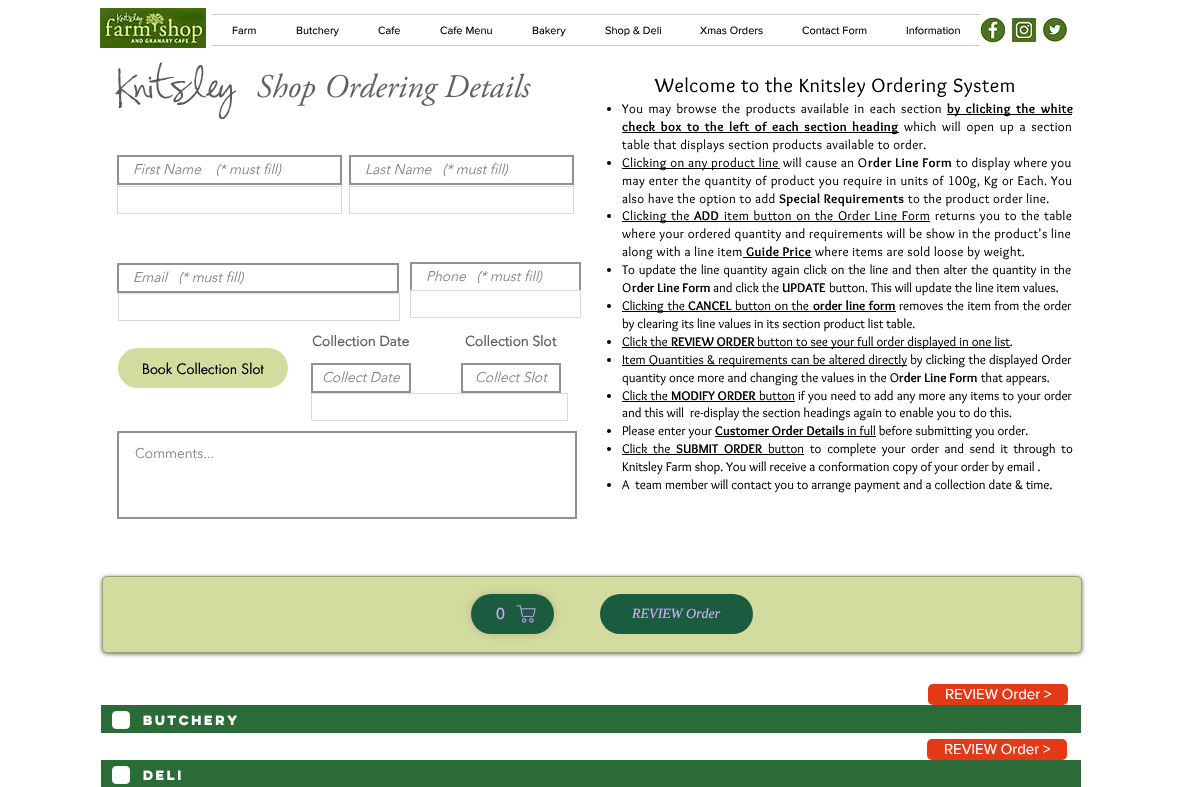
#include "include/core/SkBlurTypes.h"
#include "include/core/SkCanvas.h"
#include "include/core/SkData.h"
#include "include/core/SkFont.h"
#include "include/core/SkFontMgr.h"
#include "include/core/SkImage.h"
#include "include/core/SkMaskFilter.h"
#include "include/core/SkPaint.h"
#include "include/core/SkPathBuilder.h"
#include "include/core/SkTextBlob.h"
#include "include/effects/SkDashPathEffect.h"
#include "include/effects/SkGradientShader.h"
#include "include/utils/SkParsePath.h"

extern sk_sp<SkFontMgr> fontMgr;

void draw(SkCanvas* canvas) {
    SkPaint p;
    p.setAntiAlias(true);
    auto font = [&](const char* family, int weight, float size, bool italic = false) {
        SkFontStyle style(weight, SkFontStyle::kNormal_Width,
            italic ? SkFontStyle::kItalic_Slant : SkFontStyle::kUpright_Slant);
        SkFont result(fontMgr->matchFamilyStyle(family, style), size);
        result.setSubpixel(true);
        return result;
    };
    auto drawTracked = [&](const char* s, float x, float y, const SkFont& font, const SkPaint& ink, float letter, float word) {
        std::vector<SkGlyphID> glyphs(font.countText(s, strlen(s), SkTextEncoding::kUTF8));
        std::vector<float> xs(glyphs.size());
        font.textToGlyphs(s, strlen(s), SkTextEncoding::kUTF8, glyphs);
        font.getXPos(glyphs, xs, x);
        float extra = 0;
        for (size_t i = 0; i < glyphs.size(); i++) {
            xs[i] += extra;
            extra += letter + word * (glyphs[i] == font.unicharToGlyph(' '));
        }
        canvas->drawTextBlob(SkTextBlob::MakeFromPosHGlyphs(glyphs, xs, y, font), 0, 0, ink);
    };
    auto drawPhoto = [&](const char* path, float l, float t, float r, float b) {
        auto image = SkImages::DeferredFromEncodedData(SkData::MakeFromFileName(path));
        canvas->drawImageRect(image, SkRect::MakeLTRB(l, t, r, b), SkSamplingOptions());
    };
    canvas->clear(0xFFFFFFFF);
    drawPhoto("media/1.png", 100, 8, 206, 48);
    drawPhoto("media/2.png", 980, 17, 1006, 43);
    drawPhoto("media/3.png", 1011, 17, 1037, 43);
    drawPhoto("media/4.png", 1042, 17, 1068, 43);
    p.setColor(0xFFCACACA);
    canvas->drawRect(SkRect::MakeLTRB(212, 14, 980, 15), p);
    canvas->drawRect(SkRect::MakeLTRB(212, 45, 980, 46), p);
    auto font1 = font("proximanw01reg", 400, 11);
    p.setColor(0xFF000000);
    {
        const struct { const char* s; float x, y; } items[] = {
            {"Farm", 232, 34},
            {"Butchery", 296, 34},
            {"Cafe", 378, 34},
            {"Cafe Menu", 440, 34},
            {"Bakery", 532, 34},
            {"Shop & Deli", 605, 34},
            {"Xmas Orders", 700, 34},
            {"Contact Form", 802, 34},
            {"Information", 906, 34},
        };
        for (auto [s, x, y] : items) {
            canvas->drawString(s, x, y, font1, p);
        }
    }
    drawPhoto("media/5.png", 115, 62, 237, 119);
    drawPhoto("media/6.png", 257, 73, 531, 106);
    p.setStyle(SkPaint::kStroke_Style);
    p.setStrokeWidth(2);
    p.setColor(0xFF919191);
    canvas->drawRect(SkRect::MakeLTRB(118, 156, 341, 184), p);
    auto font2 = font("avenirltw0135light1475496", 300, 14, true);
    p.setStyle(SkPaint::kFill_Style);
    p.setColor(0xFF7F808A);
    canvas->drawString("First Name    (* must fill)", 133, 174, font2, p);
    p.setStyle(SkPaint::kStroke_Style);
    p.setStrokeWidth(1);
    p.setColor(0xFFDBDBDB);
    canvas->drawRect(SkRect::MakeLTRB(117.5f, 186.5f, 341.5f, 213.5f), p);
    p.setStrokeWidth(2);
    p.setColor(0xFF919191);
    canvas->drawRect(SkRect::MakeLTRB(350, 156, 573, 184), p);
    p.setStyle(SkPaint::kFill_Style);
    p.setColor(0xFF7F808A);
    canvas->drawString("Last Name   (* must fill)", 365, 174, font2, p);
    p.setStyle(SkPaint::kStroke_Style);
    p.setStrokeWidth(1);
    p.setColor(0xFFDBDBDB);
    canvas->drawRect(SkRect::MakeLTRB(349.5f, 186.5f, 573.5f, 213.5f), p);
    p.setStrokeWidth(2);
    p.setColor(0xFF919191);
    canvas->drawRect(SkRect::MakeLTRB(118, 264, 398, 292), p);
    p.setStyle(SkPaint::kFill_Style);
    p.setColor(0xFF7F808A);
    canvas->drawString("Email   (* must fill)", 133, 282, font2, p);
    p.setStyle(SkPaint::kStroke_Style);
    p.setStrokeWidth(1);
    p.setColor(0xFFDBDBDB);
    canvas->drawRect(SkRect::MakeLTRB(118.5f, 293.5f, 399.5f, 320.5f), p);
    p.setStrokeWidth(2);
    p.setColor(0xFF919191);
    canvas->drawRect(SkRect::MakeLTRB(411, 263, 580, 291), p);
    p.setStyle(SkPaint::kFill_Style);
    p.setColor(0xFF7F808A);
    canvas->drawString("Phone   (* must fill)", 426, 281, font2, p);
    p.setColor(0xFFFFFFFF);
    canvas->drawRect(SkRect::MakeLTRB(411, 291, 580, 292), p);
    p.setStyle(SkPaint::kStroke_Style);
    p.setStrokeWidth(1);
    p.setColor(0xFFDBDBDB);
    canvas->drawRect(SkRect::MakeLTRB(410.5f, 290.5f, 580.5f, 317.5f), p);
    p.setStyle(SkPaint::kFill_Style);
    p.setColor(0xFFD3DB9F);
    canvas->drawRoundRect(SkRect::MakeLTRB(118, 348, 288, 388), 20, 20, p);
    auto font3 = font("futura", 400, 14);
    p.setColor(0xFF000000);
    canvas->drawString("Book Collection Slot", 142, 374, font3, p);
    auto font4 = font("avenirltw0135light1475496", 700, 14);
    p.setColor(0xFF61615F);
    canvas->drawString("Collection Date", 312, 346, font4, p);
    p.setStyle(SkPaint::kStroke_Style);
    p.setStrokeWidth(2);
    p.setColor(0xFF919191);
    canvas->drawRect(SkRect::MakeLTRB(312, 364, 410, 392), p);
    p.setStyle(SkPaint::kFill_Style);
    p.setColor(0xFF7F808A);
    canvas->drawString("Collect Date", 322, 382, font2, p);
    p.setColor(0xFF61615F);
    canvas->drawString("Collection Slot", 465, 346, font4, p);
    p.setStyle(SkPaint::kStroke_Style);
    p.setColor(0xFF919191);
    canvas->drawRect(SkRect::MakeLTRB(462, 364, 560, 392), p);
    p.setStyle(SkPaint::kFill_Style);
    p.setColor(0xFF7F808A);
    canvas->drawString("Collect Slot", 475, 382, font2, p);
    p.setStyle(SkPaint::kStroke_Style);
    p.setStrokeWidth(1);
    p.setColor(0xFFDBDBDB);
    canvas->drawRect(SkRect::MakeLTRB(311.5f, 393.5f, 567.5f, 420.5f), p);
    p.setStrokeWidth(2);
    p.setColor(0xFF919191);
    canvas->drawRect(SkRect::MakeLTRB(118, 432, 576, 518), p);
    auto font5 = font("avenirltw0135light1475496", 300, 14);
    p.setStyle(SkPaint::kFill_Style);
    p.setColor(0xFF7F808A);
    canvas->drawString("Comments...", 135, 458, font5, p);
    auto font6 = font("Overlock", 400, 20);
    p.setColor(0xFF000000);
    drawTracked("Welcome to the Knitsley Ordering System", 655, 92, font6, p, 0.6f, 0);
    canvas->drawCircle(609, 109, 2, p);
    auto font7 = font("Overlock", 400, 13);
    drawTracked("You may browse the products available in each section", 622, 113, font7, p, 0.4f, 1.75f);
    canvas->drawRect(SkRect::MakeLTRB(947, 114, 1072, 115), p);
    auto font8 = font("Overlock", 700, 13);
    drawTracked("by clicking the white", 947, 113, font8, p, 0.4f, 2);
    canvas->drawRect(SkRect::MakeLTRB(622, 132, 899, 133), p);
    drawTracked("check box to the left of each section heading", 622, 131, font8, p, 0.4f, 2);
    drawTracked("which will open up a section", 904, 131, font7, p, 0.4f, 2);
    drawTracked("table that displays section products available to order.", 622, 149, font7, p, 0.4f, 0);
    canvas->drawCircle(609, 163, 2, p);
    canvas->drawRect(SkRect::MakeLTRB(622, 168, 780, 169), p);
    drawTracked("Clicking on any product line", 622, 167, font7, p, 0.4f, 0);
    drawTracked("will cause an O", 783, 167, font7, p, 0.4f, 0);
    drawTracked("rder Line Form", 868, 167, font8, p, 0.4f, 0);
    drawTracked("to display where you", 956, 167, font7, p, 0.4f, 0);
    drawTracked("may enter the quantity of product you require in units of 100g, Kg or Each. You", 622, 185, font7, p, 0.4f, 0.4f);
    drawTracked("also have the option to add", 622, 203, font7, p, 0.4f, 0);
    drawTracked("Special Requirements", 779, 203, font8, p, 0.4f, 0);
    drawTracked("to the product order line.", 908, 203, font7, p, 0.4f, 0);
    canvas->drawCircle(609, 216, 2, p);
    canvas->drawRect(SkRect::MakeLTRB(622, 221, 930, 222), p);
    drawTracked("Clicking the", 622, 220, font7, p, 0.4f, 1);
    drawTracked("ADD", 694, 220, font8, p, 0.4f, 0);
    drawTracked("item button on the Order Line Form", 724, 220, font7, p, 0.4f, 1);
    drawTracked("returns you to the table", 935, 220, font7, p, 0.4f, 1);
    drawTracked("where your ordered quantity and requirements will be show in the product's line", 622, 238, font7, p, 0.4f, 0);
    drawTracked("along with a line item", 622, 256, font7, p, 0.4f, 0);
    canvas->drawRect(SkRect::MakeLTRB(743, 257, 812, 258), p);
    drawTracked("Guide Price", 746, 256, font8, p, 0.4f, 0);
    drawTracked("where items are sold loose by weight.", 815, 256, font7, p, 0.4f, 0);
    canvas->drawCircle(609, 270, 2, p);
    drawTracked("To update the line quantity again click on the line and then alter the quantity in the", 622, 274, font7, p, 0, 1);
    canvas->drawString("O", 622, 292, font7, p);
    canvas->drawString("rder Line Form", 632, 292, font8, p);
    canvas->drawString("and click the", 713, 292, font7, p);
    canvas->drawString("UPDATE", 782, 292, font8, p);
    canvas->drawString("button. This will update the line item values.", 829, 292, font7, p);
    canvas->drawCircle(609, 306, 2, p);
    canvas->drawRect(SkRect::MakeLTRB(622, 311, 896, 312), p);
    drawTracked("Clicking the", 622, 310, font7, p, 0, 1);
    canvas->drawString("CANCEL", 688, 310, font8, p);
    drawTracked("button on the", 735, 310, font7, p, 0, 0.5f);
    drawTracked("order line form", 813, 310, font8, p, 0, 0.5f);
    drawTracked("removes the item from the order", 899, 310, font7, p, 0, 0.5f);
    canvas->drawString("by clearing its line values in its section product list table.", 622, 328, font7, p);
    canvas->drawCircle(609, 342, 2, p);
    canvas->drawString("Click the", 622, 346, font7, p);
    canvas->drawString("REVIEW ORDER", 671, 346, font8, p);
    canvas->drawRect(SkRect::MakeLTRB(622, 347, 1010, 348), p);
    canvas->drawString("button to see your full order displayed in one list.", 757, 346, font7, p);
    canvas->drawCircle(609, 360, 2, p);
    canvas->drawRect(SkRect::MakeLTRB(622, 365, 907, 366), p);
    drawTracked("Item Quantities & requirements can be altered directly by clicking the displayed Order", 622, 364, font7, p, 0, 0.25f);
    canvas->drawString("quantity once more and changing the values in the O", 622, 382, font7, p);
    canvas->drawString("rder Line Form", 899, 382, font8, p);
    canvas->drawString("that appears.", 981, 382, font7, p);
    canvas->drawCircle(609, 396, 2, p);
    drawTracked("Click the", 622, 400, font7, p, 0, 0.25f);
    drawTracked("MODIFY ORDER", 671, 400, font8, p, 0, 0.25f);
    canvas->drawRect(SkRect::MakeLTRB(622, 401, 795, 402), p);
    canvas->drawString("button", 759, 400, font7, p);
    drawTracked("if you need to add any more any items to your order", 798, 400, font7, p, 0, 0.25f);
    canvas->drawString("and this will  re-display the section headings again to enable you to do this.", 622, 417, font7, p);
    canvas->drawCircle(609, 431, 2, p);
    canvas->drawString("Please enter your", 622, 435, font7, p);
    canvas->drawString("Customer Order Details", 715, 435, font8, p);
    canvas->drawRect(SkRect::MakeLTRB(715, 436, 876, 437), p);
    canvas->drawString("in full before submitting you order.", 847, 435, font7, p);
    canvas->drawCircle(609, 449, 2, p);
    drawTracked("Click the", 622, 453, font7, p, 0, 2.75f);
    canvas->drawString("SUBMIT", 676, 453, font8, p);
    canvas->drawRect(SkRect::MakeLTRB(622, 454, 804, 455), p);
    canvas->drawString("ORDER", 724, 453, font8, p);
    canvas->drawString("button", 768, 453, font7, p);
    drawTracked("to complete your order and send it through to", 810, 453, font7, p, 0, 2.75f);
    canvas->drawString("Knitsley Farm shop. You will receive a conformation copy of your order by email .", 622, 471, font7, p);
    canvas->drawCircle(609, 485, 2, p);
    canvas->drawString("A  team member will contact you to arrange payment and a collection date & time.", 622, 489, font7, p);
    p.setColor(0x99000000);
    p.setMaskFilter(SkMaskFilter::MakeBlur(kNormal_SkBlurStyle, 2));
    canvas->drawRoundRect(SkRect::MakeLTRB(102, 577, 1082, 654), 5, 5, p);
    p.setMaskFilter(nullptr);
    p.setColor(0xFFD3DB9F);
    canvas->drawRoundRect(SkRect::MakeLTRB(102.5f, 576.5f, 1081.5f, 652.5f), 4.5f, 4.5f, p);
    p.setStyle(SkPaint::kStroke_Style);
    p.setStrokeWidth(1);
    p.setColor(0xFF90A474);
    canvas->drawRoundRect(SkRect::MakeLTRB(102.5f, 576.5f, 1081.5f, 652.5f), 4.5f, 4.5f, p);
    p.setStyle(SkPaint::kFill_Style);
    p.setColor(0x26000000);
    p.setMaskFilter(SkMaskFilter::MakeBlur(kNormal_SkBlurStyle, 4));
    canvas->drawRoundRect(SkRect::MakeLTRB(471, 594, 554, 634), 20, 20, p);
    p.setMaskFilter(nullptr);
    p.setColor(0xFF1B5B3F);
    canvas->drawRoundRect(SkRect::MakeLTRB(471, 594, 554, 634), 20, 20, p);
    auto font9 = font("Liberation Sans", 400, 16);
    p.setColor(0xFFD2ACF7);
    canvas->drawString("0", 496, 619, font9, p);
    drawPhoto("media/7.png", 516, 605, 536, 623);
    p.setColor(0xFF1B5B3F);
    canvas->drawRoundRect(SkRect::MakeLTRB(600, 594, 753, 634), 20, 20, p);
    auto font10 = font("Liberation Serif", 400, 14, true);
    p.setColor(0xFFD2ACF7);
    canvas->drawString("REVIEW Order", 632, 618, font10, p);
    p.setColor(0xFFE43916);
    canvas->drawRoundRect(SkRect::MakeLTRB(928, 684, 1068, 705), 5, 5, p);
    auto font11 = font("proximanw01reg", 400, 15);
    p.setColor(0xFFFFFFFF);
    canvas->drawString("REVIEW Order >", 945, 699, font11, p);
    p.setColor(0xFF2A6B37);
    canvas->drawRect(SkRect::MakeLTRB(101, 705, 1081, 733), p);
    p.setColor(0xFFFFFFFF);
    canvas->drawRoundRect(SkRect::MakeLTRB(112.5f, 711.5f, 129.5f, 728.5f), 3.5f, 3.5f, p);
    p.setStyle(SkPaint::kStroke_Style);
    p.setColor(0xFFF5F5F5);
    canvas->drawRoundRect(SkRect::MakeLTRB(112.5f, 711.5f, 129.5f, 728.5f), 3.5f, 3.5f, p);
    auto font12 = font("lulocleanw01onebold", 700, 12);
    p.setStyle(SkPaint::kFill_Style);
    p.setColor(0xFFFFFFFF);
    canvas->drawString("Butchery", 143, 725, font12, p);
    p.setColor(0xFFE43916);
    canvas->drawRoundRect(SkRect::MakeLTRB(927, 739, 1067, 760), 5, 5, p);
    p.setColor(0xFFFFFFFF);
    canvas->drawString("REVIEW Order >", 944, 754, font11, p);
    p.setColor(0xFF2A6B37);
    canvas->drawRect(SkRect::MakeLTRB(101, 760, 1081, 787), p);
    p.setColor(0xFFFFFFFF);
    canvas->drawRoundRect(SkRect::MakeLTRB(112.5f, 766.5f, 129.5f, 783.5f), 3.5f, 3.5f, p);
    p.setStyle(SkPaint::kStroke_Style);
    p.setColor(0xFFF5F5F5);
    canvas->drawRoundRect(SkRect::MakeLTRB(112.5f, 766.5f, 129.5f, 783.5f), 3.5f, 3.5f, p);
    p.setStyle(SkPaint::kFill_Style);
    p.setColor(0xFFFFFFFF);
    canvas->drawString("Deli", 143, 780, font12, p);
}
